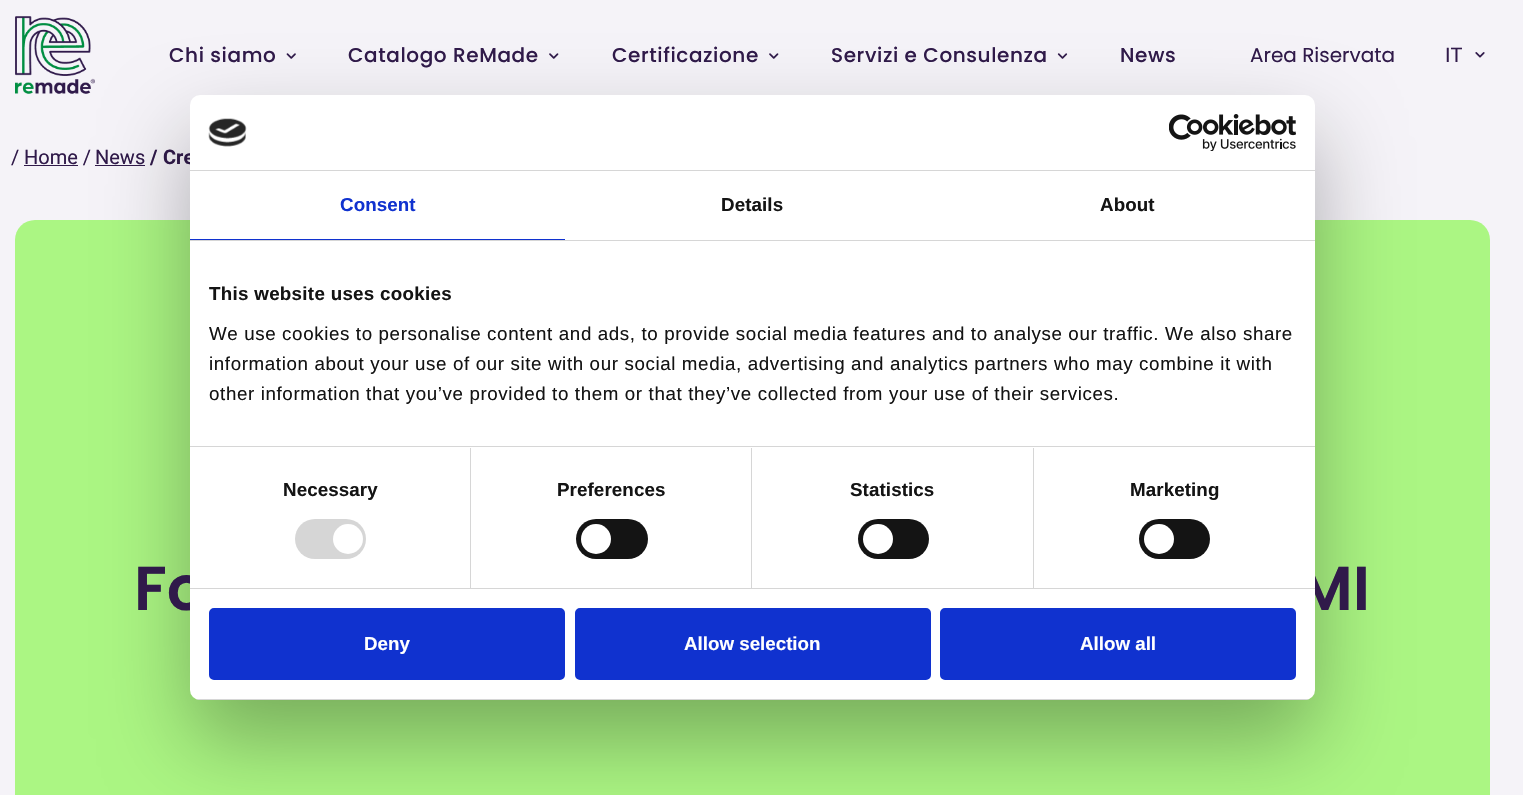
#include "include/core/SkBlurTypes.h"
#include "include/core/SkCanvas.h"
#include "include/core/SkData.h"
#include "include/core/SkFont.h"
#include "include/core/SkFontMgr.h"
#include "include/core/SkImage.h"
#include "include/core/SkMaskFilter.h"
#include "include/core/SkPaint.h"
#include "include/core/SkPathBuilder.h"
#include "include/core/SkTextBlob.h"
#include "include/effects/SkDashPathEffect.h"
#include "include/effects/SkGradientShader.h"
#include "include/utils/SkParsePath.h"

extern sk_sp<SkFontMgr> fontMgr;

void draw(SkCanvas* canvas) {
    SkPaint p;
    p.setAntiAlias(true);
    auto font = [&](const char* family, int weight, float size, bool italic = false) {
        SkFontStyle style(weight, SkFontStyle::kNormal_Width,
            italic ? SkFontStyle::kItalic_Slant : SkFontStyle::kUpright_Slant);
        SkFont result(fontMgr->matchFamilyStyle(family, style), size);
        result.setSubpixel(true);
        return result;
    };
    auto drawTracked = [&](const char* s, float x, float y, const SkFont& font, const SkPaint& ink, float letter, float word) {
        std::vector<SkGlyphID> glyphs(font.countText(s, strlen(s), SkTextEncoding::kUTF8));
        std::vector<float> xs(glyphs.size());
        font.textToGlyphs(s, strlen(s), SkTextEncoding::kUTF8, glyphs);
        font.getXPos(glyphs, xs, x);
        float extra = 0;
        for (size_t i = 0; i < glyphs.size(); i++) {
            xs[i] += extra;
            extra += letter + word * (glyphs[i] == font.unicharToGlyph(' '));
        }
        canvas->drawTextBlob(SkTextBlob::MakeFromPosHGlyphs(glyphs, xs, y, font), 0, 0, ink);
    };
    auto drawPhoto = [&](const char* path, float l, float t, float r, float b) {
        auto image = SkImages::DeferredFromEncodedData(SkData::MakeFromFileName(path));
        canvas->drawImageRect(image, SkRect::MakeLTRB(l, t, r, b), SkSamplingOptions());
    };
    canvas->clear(0xFFF5F3F8);
    drawPhoto("media/1.png", 15, 16, 95, 94);
    auto font1 = font("Poppins", 500, 20);
    p.setColor(0xFF301A4A);
    drawTracked("Chi siamo", 169, 62, font1, p, 0.6f, 0);
    drawPhoto("media/2.png", 286, 53, 296, 59);
    drawTracked("Catalogo ReMade", 348, 62, font1, p, 0.6f, 0);
    drawPhoto("media/3.png", 549, 53, 559, 59);
    drawTracked("Certificazione", 612, 62, font1, p, 0.6f, 0);
    drawPhoto("media/3.png", 769, 53, 779, 59);
    drawTracked("Servizi e Consulenza", 831, 62, font1, p, 0.6f, 0);
    drawPhoto("media/4.png", 1057, 53, 1068, 59);
    drawTracked("News", 1120, 62, font1, p, 0.6f, 0);
    auto font2 = font("Poppins", 400, 20);
    canvas->drawString("Area Riservata", 1250, 62, font2, p);
    auto font3 = font("Roboto", 400, 20);
    canvas->drawString("IT", 1445, 62, font3, p);
    drawPhoto("media/5.png", 1475, 52, 1485, 58);
    canvas->drawString("/", 11, 164, font3, p);
    canvas->drawRect(SkRect::MakeLTRB(24, 165, 78, 166), p);
    canvas->drawString("Home /", 24, 164, font3, p);
    canvas->drawString("News", 95, 164, font3, p);
    canvas->drawRect(SkRect::MakeLTRB(95, 165, 145, 166), p);
    auto font4 = font("Roboto", 700, 20);
    canvas->drawString("/", 150, 164, font4, p);
    canvas->drawString("Cre", 163, 164, font4, p);
    p.setColor(0xFFABF683);
    canvas->drawRoundRect(SkRect::MakeLTRB(15, 220, 1490, 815), 20, 20, p);
    p.setColor(0x4D000000);
    p.setMaskFilter(SkMaskFilter::MakeBlur(kNormal_SkBlurStyle, 42.5f));
    canvas->drawRoundRect(SkRect::MakeLTRB(190, 135, 1315, 740), 10, 10, p);
    p.setMaskFilter(nullptr);
    auto font5 = font("Poppins", 600, 62);
    p.setColor(0xFF301A4A);
    canvas->drawString("Fo", 134, 610, font5, p);
    canvas->drawString("MI", 1297, 610, font5, p);
    p.setColor(0xFFFFFFFF);
    canvas->drawRoundRect(SkRect::MakeLTRB(190, 95, 1315, 700), 10, 10, p);
    p.setColor(0xFFD6D6D6);
    canvas->drawRect(SkRect::MakeLTRB(190, 170, 1315, 171), p);
    drawPhoto("media/6.png", 208, 118, 247, 147);
    drawPhoto("media/7.png", 1169, 114, 1296, 151);
    canvas->drawRect(SkRect::MakeLTRB(190, 240, 1315, 241), p);
    p.setColor(0xFF1032CF);
    canvas->drawRect(SkRect::MakeLTRB(190, 239, 565, 240), p);
    auto font6 = font("Liberation Sans", 700, 18.75f);
    drawTracked("Consent", 340, 211, font6, p, 0.1f, 0);
    p.setColor(0xFF141414);
    drawTracked("Details", 721, 211, font6, p, 0.1f, 0);
    drawTracked("About", 1100, 211, font6, p, 0.1f, 0);
    p.setColor(0xFFD6D6D6);
    canvas->drawRect(SkRect::MakeLTRB(190, 446, 1315, 447), p);
    p.setColor(0xFF141414);
    drawTracked("This website uses cookies", 209, 300, font6, p, 0.3f, 0);
    auto font7 = font("Liberation Sans", 400, 18.75f);
    {
        const struct { const char* s; float x, y; } items[] = {
            {"We use cookies to personalise content and ads, to provide social media features and to analyse our traffic. We also share", 209, 340},
            {"information about your use of our site with our social media, advertising and analytics partners who may combine it with", 209, 370},
            {"other information that you’ve provided to them or that they’ve collected from your use of their services.", 209, 400},
        };
        for (auto [s, x, y] : items) {
            drawTracked(s, x, y, font7, p, 0.62f, 0);
        }
    }
    p.setColor(0xFFD6D6D6);
    canvas->drawRect(SkRect::MakeLTRB(190, 588, 1315, 589), p);
    canvas->drawRect(SkRect::MakeLTRB(470, 448, 471, 588), p);
    p.setColor(0xFF141414);
    drawTracked("Necessary", 283, 496, font6, p, 0.1f, 0);
    p.setColor(0xFFD6D6D6);
    canvas->drawRoundRect(SkRect::MakeLTRB(295, 519, 366, 559), 20, 20, p);
    p.setColor(0xFFFFFFFF);
    canvas->drawCircle(348, 539, 15, p);
    p.setColor(0xFFD6D6D6);
    canvas->drawRect(SkRect::MakeLTRB(751, 448, 752, 588), p);
    p.setColor(0xFF141414);
    drawTracked("Preferences", 557, 496, font6, p, 0.1f, 0);
    canvas->drawRoundRect(SkRect::MakeLTRB(576, 519, 648, 559), 20, 20, p);
    p.setColor(0xFFFFFFFF);
    canvas->drawCircle(596, 539, 15, p);
    p.setColor(0xFFD6D6D6);
    canvas->drawRect(SkRect::MakeLTRB(1033, 448, 1034, 588), p);
    p.setColor(0xFF141414);
    drawTracked("Statistics", 850, 496, font6, p, 0.1f, 0);
    canvas->drawRoundRect(SkRect::MakeLTRB(858, 519, 929, 559), 20, 20, p);
    p.setColor(0xFFFFFFFF);
    canvas->drawCircle(878, 539, 15, p);
    p.setColor(0xFF141414);
    drawTracked("Marketing", 1130, 496, font6, p, 0.1f, 0);
    canvas->drawRoundRect(SkRect::MakeLTRB(1139, 519, 1210, 559), 20, 20, p);
    p.setColor(0xFFFFFFFF);
    canvas->drawCircle(1159, 539, 15, p);
    canvas->save();
    canvas->clipPath(SkPathBuilder().moveTo(200, 95).lineTo(1305, 95).cubicTo(1310.5f, 95, 1315, 99.5f, 1315, 105).lineTo(1315, 690).cubicTo(1315, 695.5f, 1310.5f, 700, 1305, 700).lineTo(200, 700).cubicTo(194.5f, 700, 190, 695.5f, 190, 690).lineTo(190, 105).cubicTo(190, 99.5f, 194.5f, 95, 200, 95).close().detach(), true);
    p.setColor(0xFFD6D6D6);
    canvas->drawRect(SkRect::MakeLTRB(190, 699, 1315, 700), p);
    canvas->restore();
    p.setColor(0xFF1032CF);
    canvas->drawRoundRect(SkRect::MakeLTRB(210.5f, 609.5f, 563.5f, 678.5f), 3.5f, 3.5f, p);
    p.setStyle(SkPaint::kStroke_Style);
    p.setStrokeWidth(3);
    canvas->drawRoundRect(SkRect::MakeLTRB(210.5f, 609.5f, 563.5f, 678.5f), 3.5f, 3.5f, p);
    p.setStyle(SkPaint::kFill_Style);
    p.setColor(0xFFFFFFFF);
    canvas->drawString("Deny", 364, 650, font6, p);
    p.setColor(0xFF1032CF);
    canvas->drawRoundRect(SkRect::MakeLTRB(576.5f, 609.5f, 929.5f, 678.5f), 3.5f, 3.5f, p);
    p.setStyle(SkPaint::kStroke_Style);
    canvas->drawRoundRect(SkRect::MakeLTRB(576.5f, 609.5f, 929.5f, 678.5f), 3.5f, 3.5f, p);
    p.setStyle(SkPaint::kFill_Style);
    p.setColor(0xFFFFFFFF);
    canvas->drawString("Allow selection", 684, 650, font6, p);
    p.setColor(0xFF1032CF);
    canvas->drawRoundRect(SkRect::MakeLTRB(941.5f, 609.5f, 1294.5f, 678.5f), 3.5f, 3.5f, p);
    p.setStyle(SkPaint::kStroke_Style);
    canvas->drawRoundRect(SkRect::MakeLTRB(941.5f, 609.5f, 1294.5f, 678.5f), 3.5f, 3.5f, p);
    p.setStyle(SkPaint::kFill_Style);
    p.setColor(0xFFFFFFFF);
    canvas->drawString("Allow all", 1080, 650, font6, p);
}
